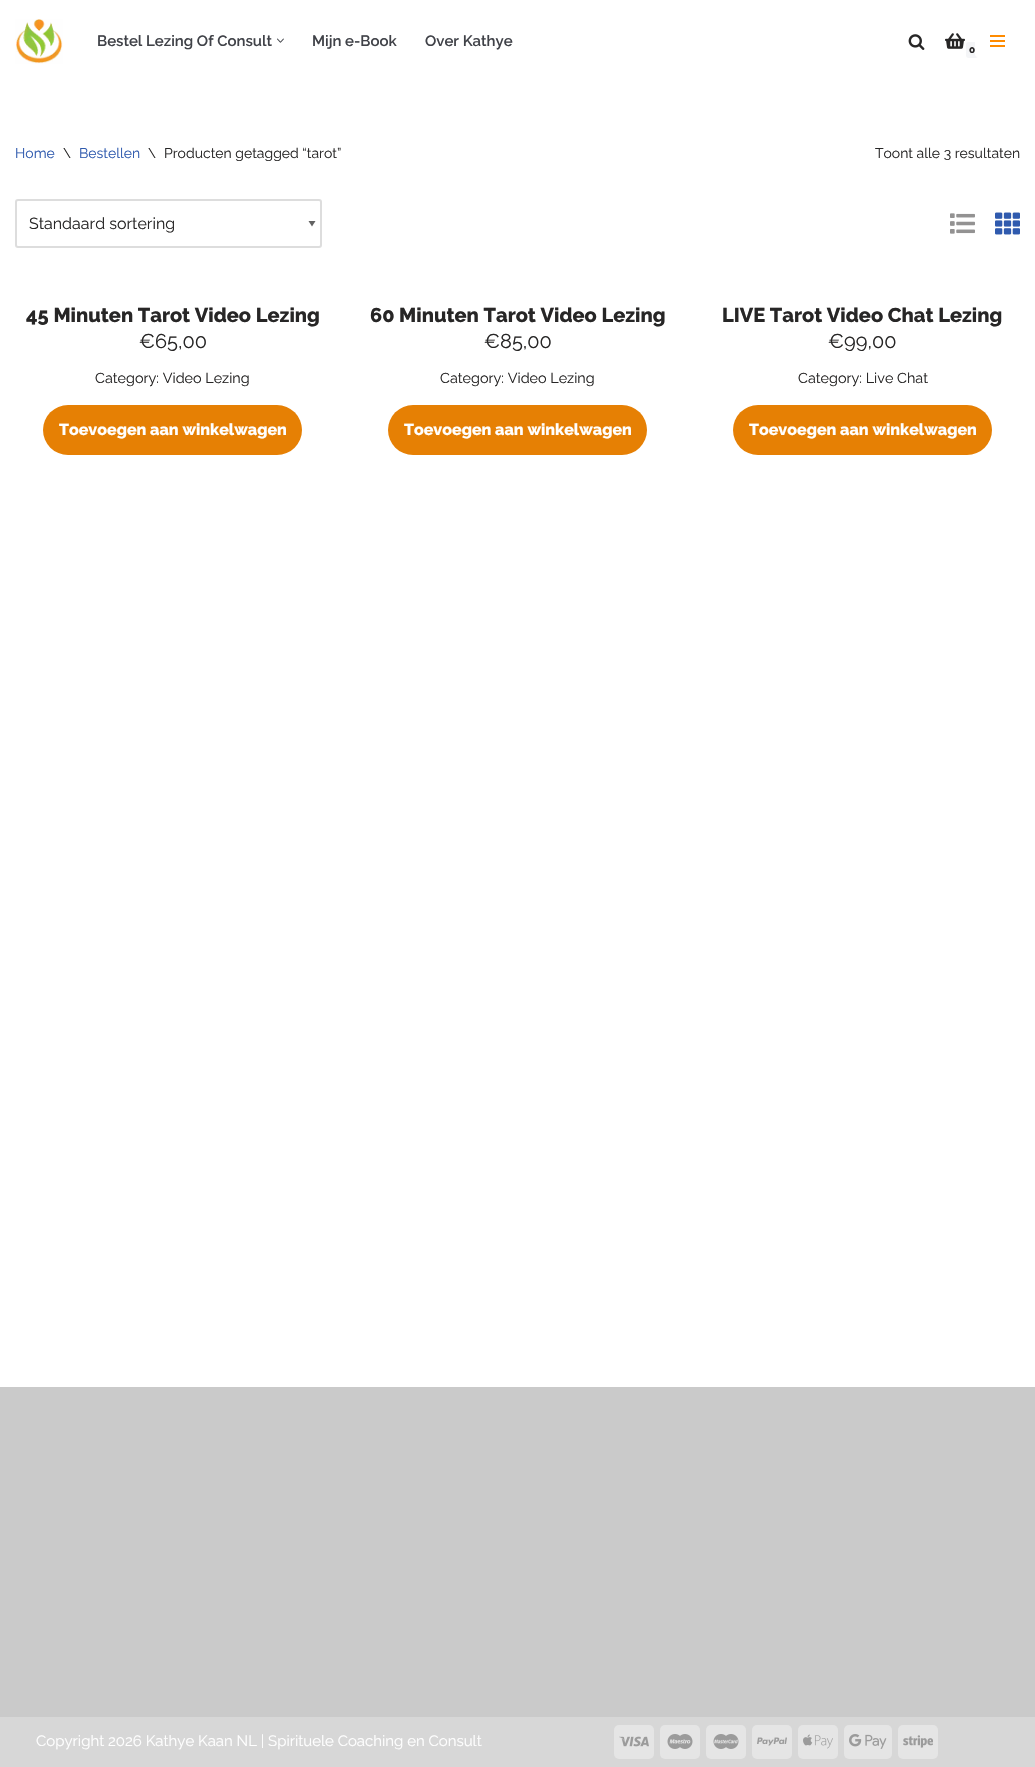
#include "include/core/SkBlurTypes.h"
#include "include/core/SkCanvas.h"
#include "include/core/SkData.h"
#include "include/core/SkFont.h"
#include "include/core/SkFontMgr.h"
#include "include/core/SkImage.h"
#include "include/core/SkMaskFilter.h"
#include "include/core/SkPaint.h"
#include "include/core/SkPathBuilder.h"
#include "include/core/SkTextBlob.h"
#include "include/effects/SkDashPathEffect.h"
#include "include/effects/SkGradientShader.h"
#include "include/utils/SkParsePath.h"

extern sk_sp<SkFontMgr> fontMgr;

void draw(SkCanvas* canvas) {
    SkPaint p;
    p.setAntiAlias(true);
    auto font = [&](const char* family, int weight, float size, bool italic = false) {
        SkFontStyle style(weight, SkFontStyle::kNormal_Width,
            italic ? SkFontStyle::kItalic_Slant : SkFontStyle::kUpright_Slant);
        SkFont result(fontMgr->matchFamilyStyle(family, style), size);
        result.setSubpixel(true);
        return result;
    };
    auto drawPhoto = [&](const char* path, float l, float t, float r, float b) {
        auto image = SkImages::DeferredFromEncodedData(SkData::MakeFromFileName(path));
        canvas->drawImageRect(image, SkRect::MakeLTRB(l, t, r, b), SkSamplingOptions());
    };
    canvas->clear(0xFFFFFFFF);
    drawPhoto("media/1.png", 15, 19, 63, 64);
    auto font1 = font("Raleway", 600, 15);
    p.setColor(0xFF404248);
    canvas->drawString("Bestel Lezing Of Consult", 97, 46, font1, p);
    drawPhoto("media/2.png", 277, 38, 284, 43);
    canvas->drawString("Mijn e-Book", 312, 46, font1, p);
    canvas->drawString("Over Kathye", 425, 46, font1, p);
    drawPhoto("media/3.png", 908, 34, 925, 50);
    drawPhoto("media/4.png", 945, 33, 965, 49);
    p.setColor(0xFFF4F5F7);
    canvas->drawRoundRect(SkRect::MakeLTRB(966, 42, 978, 58), 3, 3, p);
    auto font2 = font("Raleway", 800, 10);
    p.setColor(0xFF272626);
    canvas->drawString("0", 969, 53, font2, p);
    p.setColor(0xFFFFFFFF);
    canvas->drawRoundRect(SkRect::MakeLTRB(975, 25, 1020, 57), 3, 3, p);
    {
        const struct { float l, t, r, b; SkColor color; } items[] = {
            {990, 35, 1005, 37, 0xFFFF8B00},
            {990, 40, 1005, 42, 0xFFFF8B00},
            {990, 45, 1005, 47, 0xFFFF8B00},
        };
        for (auto [l, t, r, b, color] : items) {
            p.setColor(color);
            canvas->drawRect(SkRect::MakeLTRB(l, t, r, b), p);
        }
    }
    auto font3 = font("Raleway", 400, 14);
    p.setColor(0xFF2F5AAE);
    canvas->drawString("Home", 15, 158, font3, p);
    p.setColor(0xFF272626);
    canvas->drawString("\\", 63, 158, font3, p);
    p.setColor(0xFF2F5AAE);
    canvas->drawString("Bestellen", 79, 158, font3, p);
    p.setColor(0xFF272626);
    {
        const struct { const char* s; float x, y; } items[] = {
            {"\\", 148, 158},
            {"Producten getagged “tarot”", 164, 158},
            {"Toont alle 3 resultaten", 875, 158},
        };
        for (auto [s, x, y] : items) {
            canvas->drawString(s, x, y, font3, p);
        }
    }
    p.setColor(0xFF626262);
    canvas->drawPath(SkPathBuilder().moveTo(315.5f, 221).lineTo(312, 226.5f).lineTo(308.5f, 221).close().detach(), p);
    p.setStyle(SkPaint::kStroke_Style);
    p.setStrokeWidth(2);
    p.setColor(0xFFDDDDDD);
    canvas->drawRoundRect(SkRect::MakeLTRB(16, 200, 321, 247), 2, 2, p);
    auto font4 = font("Raleway", 400, 16);
    p.setStyle(SkPaint::kFill_Style);
    p.setColor(0xFF272626);
    canvas->drawString("Standaard sortering", 29, 229, font4, p);
    drawPhoto("media/5.png", 950, 213, 975, 234);
    drawPhoto("media/6.png", 995, 212, 1020, 235);
    auto font5 = font("Raleway", 800, 20);
    canvas->drawString("45 Minuten Tarot Video Lezing", 26, 322, font5, p);
    auto font6 = font("Raleway", 400, 20);
    canvas->drawString("€65,00", 139, 348, font6, p);
    auto font7 = font("Raleway", 400, 14.4f);
    canvas->drawString("Category: Video Lezing", 95, 383, font7, p);
    p.setColor(0xFFE68004);
    canvas->drawRoundRect(SkRect::MakeLTRB(43, 405, 302, 455), 25, 25, p);
    auto font8 = font("Raleway", 800, 16);
    p.setColor(0xFFFFFFFF);
    canvas->drawString("Toevoegen aan winkelwagen", 59, 435, font8, p);
    p.setColor(0xFF272626);
    canvas->drawString("60 Minuten Tarot Video Lezing", 370, 322, font5, p);
    canvas->drawString("€85,00", 484, 348, font6, p);
    canvas->drawString("Category: Video Lezing", 440, 383, font7, p);
    p.setColor(0xFFE68004);
    canvas->drawRoundRect(SkRect::MakeLTRB(388, 405, 647, 455), 25, 25, p);
    p.setColor(0xFFFFFFFF);
    canvas->drawString("Toevoegen aan winkelwagen", 404, 435, font8, p);
    p.setColor(0xFF272626);
    canvas->drawString("LIVE Tarot Video Chat Lezing", 722, 322, font5, p);
    canvas->drawString("€99,00", 828, 348, font6, p);
    canvas->drawString("Category: Live Chat", 798, 383, font7, p);
    p.setColor(0xFFE68004);
    canvas->drawRoundRect(SkRect::MakeLTRB(733, 405, 992, 455), 25, 25, p);
    p.setColor(0xFFFFFFFF);
    canvas->drawString("Toevoegen aan winkelwagen", 749, 435, font8, p);
    p.setColor(0xFFCACACA);
    canvas->drawRect(SkRect::MakeLTRB(0, 1387, 1035, 1717), p);
    p.setColor(0xFFD7D7D7);
    canvas->drawRect(SkRect::MakeLTRB(0, 1717, 1035, 1767), p);
    auto font9 = font("Raleway", 400, 15);
    p.setColor(0xFFFFFFFF);
    canvas->drawString("Copyright 2026 Kathye Kaan NL | Spirituele Coaching en Consult", 36, 1746, font9, p);
    p.setColor(0xFFE5E5E5);
    canvas->drawRoundRect(SkRect::MakeLTRB(614, 1725, 654, 1759), 5, 5, p);
    drawPhoto("media/7.png", 619, 1736, 649, 1747);
    canvas->drawRoundRect(SkRect::MakeLTRB(660, 1725, 700, 1759), 5, 5, p);
    drawPhoto("media/8.png", 667, 1734, 693, 1749);
    canvas->drawRoundRect(SkRect::MakeLTRB(706, 1725, 746, 1759), 5, 5, p);
    drawPhoto("media/9.png", 713, 1734, 739, 1749);
    canvas->drawRoundRect(SkRect::MakeLTRB(752, 1725, 792, 1759), 5, 5, p);
    drawPhoto("media/10.png", 757, 1737, 787, 1746);
    canvas->drawRoundRect(SkRect::MakeLTRB(798, 1725, 838, 1759), 5, 5, p);
    drawPhoto("media/11.png", 803, 1734, 833, 1749);
    canvas->drawRoundRect(SkRect::MakeLTRB(844, 1725, 892, 1759), 5, 5, p);
    drawPhoto("media/12.png", 849, 1734, 887, 1749);
    canvas->drawRoundRect(SkRect::MakeLTRB(898, 1725, 938, 1759), 5, 5, p);
    drawPhoto("media/13.png", 903, 1735, 933, 1748);
}
